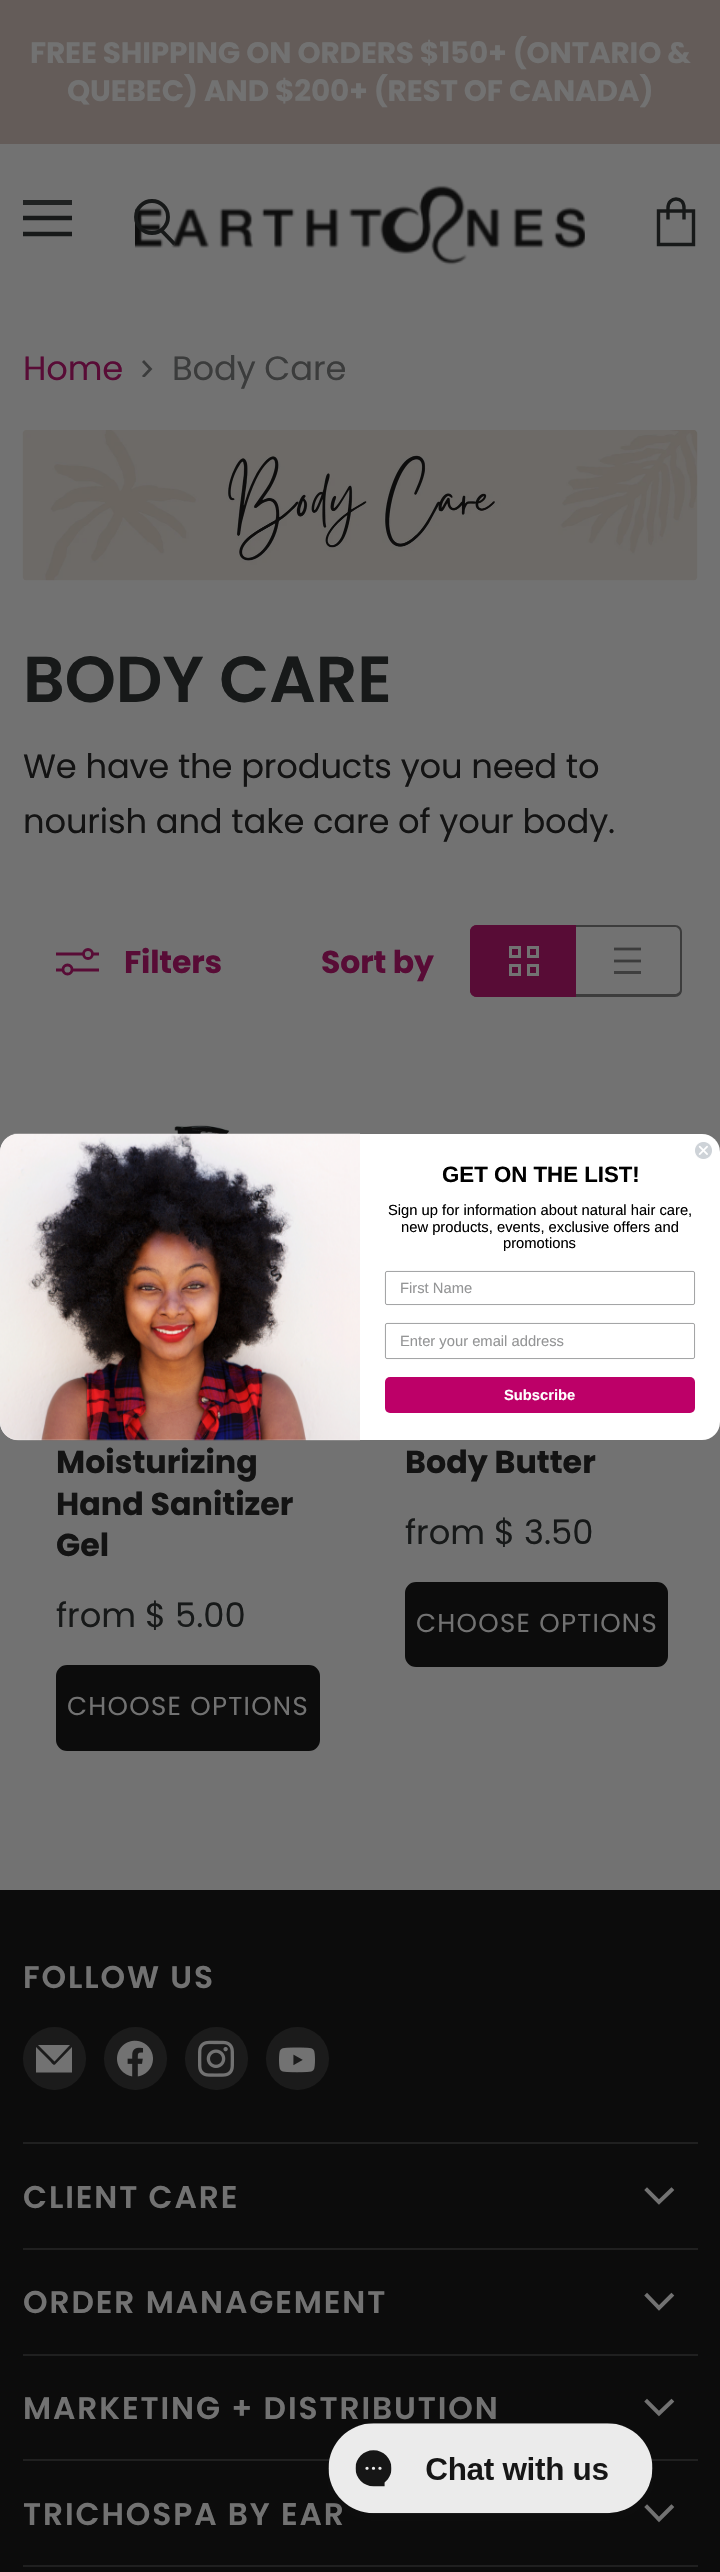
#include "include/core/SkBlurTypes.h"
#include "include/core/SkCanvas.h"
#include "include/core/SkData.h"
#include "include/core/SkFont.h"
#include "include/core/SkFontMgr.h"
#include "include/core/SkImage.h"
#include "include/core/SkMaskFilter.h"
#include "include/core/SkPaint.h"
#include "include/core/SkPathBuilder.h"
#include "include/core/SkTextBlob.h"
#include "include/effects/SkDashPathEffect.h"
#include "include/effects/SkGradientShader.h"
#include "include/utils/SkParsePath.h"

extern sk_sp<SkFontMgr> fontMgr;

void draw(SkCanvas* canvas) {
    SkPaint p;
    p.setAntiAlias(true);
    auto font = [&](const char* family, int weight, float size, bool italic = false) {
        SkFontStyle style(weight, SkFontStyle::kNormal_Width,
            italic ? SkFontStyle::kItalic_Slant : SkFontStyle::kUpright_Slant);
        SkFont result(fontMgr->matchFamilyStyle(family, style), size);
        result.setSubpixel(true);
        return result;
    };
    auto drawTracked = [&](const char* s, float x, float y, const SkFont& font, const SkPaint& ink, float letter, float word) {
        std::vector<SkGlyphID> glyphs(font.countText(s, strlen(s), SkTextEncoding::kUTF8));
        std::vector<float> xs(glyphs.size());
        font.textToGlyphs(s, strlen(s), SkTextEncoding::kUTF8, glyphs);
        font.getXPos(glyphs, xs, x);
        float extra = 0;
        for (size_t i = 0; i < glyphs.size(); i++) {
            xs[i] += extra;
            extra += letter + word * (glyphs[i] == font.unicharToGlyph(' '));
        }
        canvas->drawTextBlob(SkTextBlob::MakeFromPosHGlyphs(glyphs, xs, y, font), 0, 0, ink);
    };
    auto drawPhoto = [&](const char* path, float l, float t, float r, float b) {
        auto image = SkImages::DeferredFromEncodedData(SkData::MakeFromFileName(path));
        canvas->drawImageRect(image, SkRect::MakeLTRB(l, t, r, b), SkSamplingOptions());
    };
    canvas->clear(0xFF727272);
    p.setColor(0xFF645C59);
    canvas->drawRect(SkRect::MakeLTRB(0, 0, 720, 144), p);
    auto font1 = font("Poppins", 700, 29.5f);
    p.setColor(0xFF727272);
    drawTracked("FREE SHIPPING ON ORDERS $150+ (ONTARIO &", 30, 63, font1, p, -0.15f, 0);
    drawTracked("QUEBEC) AND $200+ (REST OF CANADA)", 67, 101, font1, p, -0.15f, 0);
    drawPhoto("media/1.png", 135, 185, 585, 265);
    p.setColor(0xFF202222);
    canvas->drawRect(SkRect::MakeLTRB(23, 200, 72, 205), p);
    canvas->save();
    canvas->clipRect(SkRect::MakeLTRB(23, 198, 72, 239));
    p.setStyle(SkPaint::kStroke_Style);
    p.setStrokeWidth(4.5f);
    p.setStrokeCap(SkPaint::kSquare_Cap);
    p.setStrokeJoin(SkPaint::kRound_Join);
    p.setColor(0xFF171919);
    canvas->drawPath(SkPathBuilder().moveTo(70, 218).lineTo(25, 218).moveTo(70, 234).lineTo(25, 234).detach(), p);
    canvas->restore();
    p.setStrokeWidth(3.9f);
    p.setStrokeCap(SkPaint::kButt_Cap);
    p.setStrokeJoin(SkPaint::kMiter_Join);
    canvas->drawPath(SkPathBuilder().moveTo(174.5f, 244).lineTo(161, 230).detach(), p);
    canvas->drawCircle(152, 217, 16, p);
    p.setStrokeWidth(3.4f);
    canvas->drawPath(SkPathBuilder().moveTo(658.5f, 211).lineTo(693.5f, 211).lineTo(693.5f, 244.5f).lineTo(658.5f, 244.5f).close().moveTo(684, 219.5f).lineTo(684, 208).cubicTo(684, 202, 680.5f, 199, 676, 199).cubicTo(672, 199, 668, 202, 668, 208).lineTo(668, 219.5f).detach(), p);
    auto font2 = font("Poppins", 400, 33.75f);
    p.setStyle(SkPaint::kFill_Style);
    p.setColor(0xFF580C36);
    drawTracked("Home", 23, 380, font2, p, -0.15f, 0);
    canvas->save();
    canvas->clipPath(SkPathBuilder().moveTo(141.5f, 377).lineTo(141.5f, 359).lineTo(153, 359).lineTo(153, 377).close().detach(), true);
    p.setStyle(SkPaint::kStroke_Style);
    p.setStrokeWidth(2.8f);
    p.setColor(0xFF3B3C3C);
    canvas->drawPath(SkPathBuilder().moveTo(143, 377).lineTo(150.5f, 369).lineTo(143, 361).detach(), p);
    canvas->restore();
    p.setStyle(SkPaint::kFill_Style);
    drawTracked("Body Care", 172, 380, font2, p, -0.15f, 0);
    drawPhoto("media/2.png", 22, 430, 698, 581);
    auto font3 = font("Poppins", 600, 65);
    p.setColor(0xFF171919);
    canvas->drawString("BODY CARE", 23, 702, font3, p);
    p.setColor(0xFF131313);
    drawTracked("We have the products you need to", 23, 778, font2, p, -0.15f, 0);
    drawTracked("nourish and take care of your body.", 23, 833, font2, p, -0.15f, 0);
    p.setStyle(SkPaint::kStroke_Style);
    p.setColor(0xFF580C36);
    canvas->drawCircle(88, 954, 4.5f, p);
    canvas->drawPath(SkPathBuilder().moveTo(56, 954).lineTo(83, 954).moveTo(99, 954).lineTo(92, 954).moveTo(67.5f, 965).cubicTo(61.5f, 965, 61.5f, 974, 67.5f, 974).cubicTo(73.5f, 974, 73.5f, 965, 67.5f, 965).close().moveTo(99, 970).lineTo(72, 970).moveTo(56, 970).lineTo(63, 970).detach(), p);
    auto font4 = font("Poppins", 700, 31.5f);
    p.setStyle(SkPaint::kFill_Style);
    drawTracked("Filters", 124, 973, font4, p, -0.15f, 0);
    drawTracked("Sort by", 321, 973, font4, p, -0.15f, 0);
    canvas->drawPath(SkPathBuilder().moveTo(477, 925).lineTo(576, 925).lineTo(576, 997).lineTo(477, 997).cubicTo(473, 997, 470, 994, 470, 990).lineTo(470, 932).cubicTo(470, 928, 473, 925, 477, 925).close().detach(), p);
    canvas->drawPath(SkPathBuilder(SkPathFillType::kEvenOdd).moveTo(477, 925).lineTo(576, 925).lineTo(576, 997).lineTo(477, 997).cubicTo(473, 997, 470, 994, 470, 990).lineTo(470, 932).cubicTo(470, 928, 473, 925, 477, 925).close().moveTo(477, 927).lineTo(576, 927).lineTo(576, 994).lineTo(477, 994).cubicTo(475, 994, 472, 992, 472, 990).lineTo(472, 932).cubicTo(472, 929, 475, 927, 477, 927).close().detach(), p);
    p.setStyle(SkPaint::kStroke_Style);
    p.setStrokeWidth(3);
    p.setColor(0xFF727272);
    canvas->drawRect(SkRect::MakeLTRB(510.5f, 947.5f, 519.5f, 956.5f), p);
    canvas->drawRect(SkRect::MakeLTRB(528.5f, 947.5f, 537.5f, 956.5f), p);
    canvas->drawRect(SkRect::MakeLTRB(510.5f, 965.5f, 519.5f, 974.5f), p);
    canvas->drawRect(SkRect::MakeLTRB(528.5f, 965.5f, 537.5f, 974.5f), p);
    p.setStyle(SkPaint::kFill_Style);
    p.setColor(0xFF3C3C3C);
    canvas->drawPath(SkPathBuilder(SkPathFillType::kEvenOdd).moveTo(576, 925).lineTo(675, 925).cubicTo(679, 925, 682, 928, 682, 932).lineTo(682, 990).cubicTo(682, 994, 679, 997, 675, 997).lineTo(576, 997).close().moveTo(576, 927).lineTo(675, 927).cubicTo(677, 927, 680, 929, 680, 932).lineTo(680, 990).cubicTo(680, 992, 677, 994, 675, 994).lineTo(576, 994).close().detach(), p);
    p.setStyle(SkPaint::kStroke_Style);
    p.setStrokeWidth(2.8f);
    p.setStrokeJoin(SkPaint::kRound_Join);
    canvas->drawPath(SkPathBuilder().moveTo(614, 949).lineTo(641, 949).detach(), p);
    canvas->drawPath(SkPathBuilder().moveTo(614, 961).lineTo(641, 961).detach(), p);
    p.setStyle(SkPaint::kFill_Style);
    p.setColor(0xFF3F3F3F);
    canvas->drawRect(SkRect::MakeLTRB(614, 971, 641, 974), p);
    drawPhoto("media/3.png", 125, 1124, 244, 1134);
    auto font5 = font("Poppins", 700, 31.75f);
    p.setColor(0xFF131313);
    {
        const struct { const char* s; float x, y; } items[] = {
            {"Moisturizing", 56, 1473},
            {"Hand Sanitizer", 56, 1515},
            {"Gel", 56, 1556},
        };
        for (auto [s, x, y] : items) {
            canvas->drawString(s, x, y, font5, p);
        }
    }
    p.setColor(0xFF171919);
    canvas->drawString("from $ 5.00", 56, 1627, font2, p);
    p.setColor(0xFF0C0C0C);
    canvas->drawRoundRect(SkRect::MakeLTRB(57, 1666, 319, 1750), 10, 10, p);
    p.setStyle(SkPaint::kStroke_Style);
    p.setStrokeWidth(2);
    p.setStrokeJoin(SkPaint::kMiter_Join);
    canvas->drawRoundRect(SkRect::MakeLTRB(57, 1666, 319, 1750), 10, 10, p);
    auto font6 = font("Poppins", 400, 26);
    p.setStyle(SkPaint::kFill_Style);
    p.setColor(0xFF727272);
    drawTracked("CHOOSE OPTIONS", 67, 1715, font6, p, 1.25f, 0);
    p.setColor(0xFF131313);
    canvas->drawString("Body Butter", 405, 1473, font5, p);
    p.setColor(0xFF171919);
    canvas->drawString("from $ 3.50", 405, 1544, font2, p);
    p.setColor(0xFF0C0C0C);
    canvas->drawRoundRect(SkRect::MakeLTRB(406, 1583, 667, 1666), 10, 10, p);
    p.setStyle(SkPaint::kStroke_Style);
    canvas->drawRoundRect(SkRect::MakeLTRB(406, 1583, 667, 1666), 10, 10, p);
    p.setStyle(SkPaint::kFill_Style);
    p.setColor(0xFF727272);
    drawTracked("CHOOSE OPTIONS", 416, 1632, font6, p, 1.25f, 0);
    p.setColor(0xFFFFFFFF);
    canvas->drawRoundRect(SkRect::MakeLTRB(0, 1134, 720, 1440), 18, 18, p);
    drawPhoto("media/4.png", 695, 1142, 712, 1159);
    drawPhoto("media/5.png", 0, 1133, 360, 1441);
    auto font7 = font("Liberation Sans", 700, 22.25f);
    p.setColor(0xFF000000);
    canvas->drawString("GET ON THE LIST!", 442, 1182, font7, p);
    auto font8 = font("Liberation Sans", 400, 14.75f);
    {
        const struct { const char* s; float x, y; } items[] = {
            {"Sign up for information about natural hair care,", 388, 1215},
            {"new products, events, exclusive offers and", 401, 1232},
            {"promotions", 503, 1248},
        };
        for (auto [s, x, y] : items) {
            canvas->drawString(s, x, y, font8, p);
        }
    }
    p.setStyle(SkPaint::kStroke_Style);
    p.setStrokeWidth(0.9f);
    p.setColor(0xFF949596);
    canvas->drawRoundRect(SkRect::MakeLTRB(385.45f, 1271.45f, 694.55f, 1304.55f), 1.55f, 1.55f, p);
    canvas->save();
    canvas->clipRect(SkRect::MakeLTRB(401, 1280, 695, 1296));
    p.setStyle(SkPaint::kFill_Style);
    canvas->drawString("First Name", 400, 1293, font8, p);
    canvas->restore();
    p.setStyle(SkPaint::kStroke_Style);
    canvas->drawRoundRect(SkRect::MakeLTRB(385.45f, 1323.45f, 694.55f, 1358.55f), 1.55f, 1.55f, p);
    canvas->save();
    canvas->clipRect(SkRect::MakeLTRB(401, 1334, 695, 1350));
    p.setStyle(SkPaint::kFill_Style);
    canvas->drawString("Enter your email address", 400, 1346, font8, p);
    canvas->restore();
    p.setColor(0xFFBD0068);
    canvas->drawRoundRect(SkRect::MakeLTRB(385, 1377, 695, 1413), 5, 5, p);
    auto font9 = font("Liberation Sans", 700, 14.75f);
    p.setColor(0xFFFFFFFF);
    canvas->drawString("Subscribe", 504, 1400, font9, p);
    p.setColor(0xFF0C0C0C);
    canvas->drawRect(SkRect::MakeLTRB(0, 1890, 720, 2572), p);
    p.setColor(0xFF202020);
    canvas->drawRect(SkRect::MakeLTRB(23, 2142, 698, 2144), p);
    auto font10 = font("Poppins", 600, 31.3f);
    p.setColor(0xFF727272);
    drawTracked("FOLLOW US", 23, 1988, font10, p, 1.9f, 0);
    p.setColor(0xFF1B1B1B);
    canvas->drawCircle(54.5f, 2058.5f, 31.5f, p);
    p.setColor(0xFF727272);
    canvas->drawPath(SkPathBuilder().moveTo(55, 2064.5f).cubicTo(53.5f, 2066, 50.5f, 2061.5f, 50.5f, 2061.5f).lineTo(36, 2047).lineTo(36, 2072.5f).lineTo(72, 2072.5f).lineTo(72, 2047).close().detach(), p);
    canvas->drawPath(SkPathBuilder().moveTo(70, 2045).lineTo(38, 2045).lineTo(54.5f, 2061.5f).close().detach(), p);
    p.setColor(0xFF1B1B1B);
    canvas->drawCircle(135.5f, 2058.5f, 31.5f, p);
    drawPhoto("media/6.png", 117, 2040, 153, 2077);
    canvas->drawCircle(216.5f, 2058.5f, 31.5f, p);
    drawPhoto("media/7.png", 198, 2040, 234, 2077);
    canvas->drawCircle(297.5f, 2058.5f, 31.5f, p);
    drawPhoto("media/8.png", 279, 2047, 315, 2073);
    p.setColor(0xFF202020);
    canvas->drawRect(SkRect::MakeLTRB(23, 2248, 698, 2250), p);
    p.setColor(0xFF727272);
    drawTracked("CLIENT CARE", 23, 2208, font10, p, 1.9f, 0);
    p.setStyle(SkPaint::kStroke_Style);
    p.setStrokeWidth(3.9f);
    p.setStrokeCap(SkPaint::kSquare_Cap);
    canvas->drawPath(SkPathBuilder().moveTo(659, 2202).lineTo(671.5f, 2190).moveTo(659, 2202).lineTo(647, 2190).detach(), p);
    p.setStyle(SkPaint::kFill_Style);
    p.setColor(0xFF202020);
    canvas->drawRect(SkRect::MakeLTRB(23, 2354, 698, 2356), p);
    p.setColor(0xFF727272);
    drawTracked("ORDER MANAGEMENT", 23, 2313, font10, p, 1.9f, 0);
    p.setStyle(SkPaint::kStroke_Style);
    canvas->drawPath(SkPathBuilder().moveTo(659, 2308).lineTo(671.5f, 2295.5f).moveTo(659, 2308).lineTo(647, 2295.5f).detach(), p);
    p.setStyle(SkPaint::kFill_Style);
    p.setColor(0xFF202020);
    canvas->drawRect(SkRect::MakeLTRB(23, 2459, 698, 2461), p);
    p.setColor(0xFF727272);
    drawTracked("MARKETING + DISTRIBUTION", 23, 2419, font10, p, 1.9f, 0);
    p.setStyle(SkPaint::kStroke_Style);
    canvas->drawPath(SkPathBuilder().moveTo(659, 2413.5f).lineTo(671.5f, 2401.5f).moveTo(659, 2413.5f).lineTo(647, 2401.5f).detach(), p);
    p.setStyle(SkPaint::kFill_Style);
    p.setColor(0xFF202020);
    canvas->drawRect(SkRect::MakeLTRB(23, 2565, 698, 2567), p);
    p.setColor(0xFF727272);
    drawTracked("TRICHOSPA BY EAR", 23, 2525, font10, p, 1.9f, 0);
    p.setStyle(SkPaint::kStroke_Style);
    canvas->drawPath(SkPathBuilder().moveTo(659, 2519.5f).lineTo(671.5f, 2507).moveTo(659, 2519.5f).lineTo(647, 2507).detach(), p);
    drawPhoto("media/9.png", 328, 2423, 653, 2521);
}
